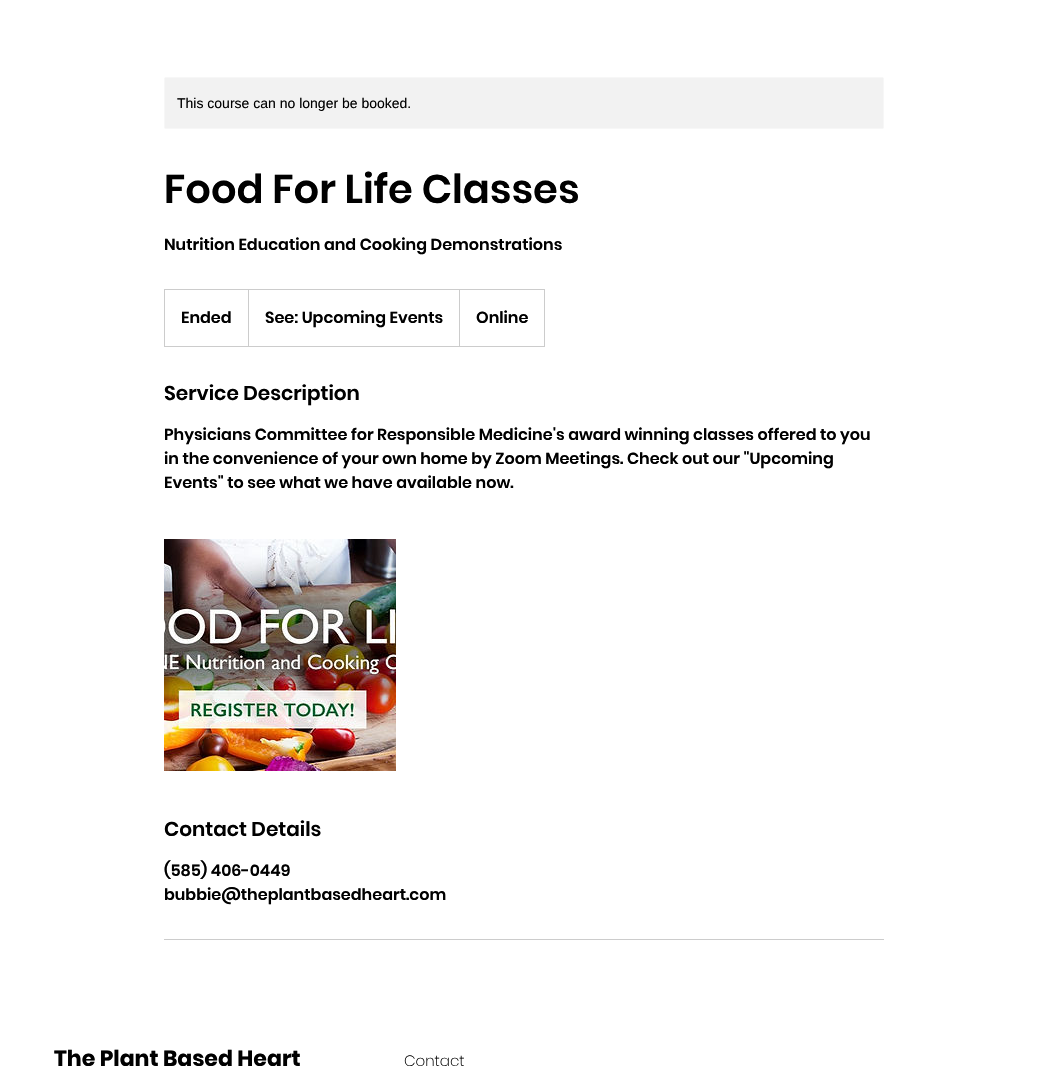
#include "include/core/SkBlurTypes.h"
#include "include/core/SkCanvas.h"
#include "include/core/SkData.h"
#include "include/core/SkFont.h"
#include "include/core/SkFontMgr.h"
#include "include/core/SkImage.h"
#include "include/core/SkMaskFilter.h"
#include "include/core/SkPaint.h"
#include "include/core/SkPathBuilder.h"
#include "include/core/SkTextBlob.h"
#include "include/effects/SkDashPathEffect.h"
#include "include/effects/SkGradientShader.h"
#include "include/utils/SkParsePath.h"

extern sk_sp<SkFontMgr> fontMgr;

void draw(SkCanvas* canvas) {
    SkPaint p;
    p.setAntiAlias(true);
    auto font = [&](const char* family, int weight, float size, bool italic = false) {
        SkFontStyle style(weight, SkFontStyle::kNormal_Width,
            italic ? SkFontStyle::kItalic_Slant : SkFontStyle::kUpright_Slant);
        SkFont result(fontMgr->matchFamilyStyle(family, style), size);
        result.setSubpixel(true);
        return result;
    };
    auto drawPhoto = [&](const char* path, float l, float t, float r, float b) {
        auto image = SkImages::DeferredFromEncodedData(SkData::MakeFromFileName(path));
        canvas->drawImageRect(image, SkRect::MakeLTRB(l, t, r, b), SkSamplingOptions());
    };
    canvas->clear(0xFFFFFFFF);
    p.setColor(0xFFF2F2F2);
    canvas->drawRoundRect(SkRect::MakeLTRB(164.5f, 77.5f, 883.5f, 128.5f), 1.5f, 1.5f, p);
    p.setStyle(SkPaint::kStroke_Style);
    p.setStrokeWidth(1);
    p.setColor(0xFFF7F7F7);
    canvas->drawRoundRect(SkRect::MakeLTRB(164.5f, 77.5f, 883.5f, 128.5f), 1.5f, 1.5f, p);
    auto font1 = font("Liberation Sans", 400, 14);
    p.setStyle(SkPaint::kFill_Style);
    p.setColor(0xFF000000);
    canvas->drawString("This course can no longer be booked.", 177, 108, font1, p);
    auto font2 = font("Poppins", 600, 40);
    canvas->drawString("Food For Life Classes", 164, 203, font2, p);
    auto font3 = font("Poppins", 600, 16);
    canvas->drawString("Nutrition Education and Cooking Demonstrations", 164, 250, font3, p);
    p.setStyle(SkPaint::kStroke_Style);
    p.setColor(0xFFCCCCCC);
    canvas->drawRect(SkRect::MakeLTRB(164.5f, 289.5f, 544.5f, 346.5f), p);
    p.setStyle(SkPaint::kFill_Style);
    p.setColor(0xFF000000);
    canvas->drawString("Ended", 181, 323, font3, p);
    p.setColor(0xFFCCCCCC);
    canvas->drawPath(SkPathBuilder().moveTo(248, 346).lineTo(248, 289).lineTo(249, 290).lineTo(249, 346).close().detach(), p);
    p.setColor(0xFF000000);
    canvas->drawString("See: Upcoming Events", 265, 323, font3, p);
    p.setColor(0xFFCCCCCC);
    canvas->drawPath(SkPathBuilder().moveTo(459, 346).lineTo(459, 289).lineTo(460, 290).lineTo(460, 346).close().detach(), p);
    p.setColor(0xFF000000);
    canvas->drawString("Online", 476, 323, font3, p);
    auto font4 = font("Poppins", 600, 20);
    canvas->drawString("Service Description", 164, 400, font4, p);
    {
        const struct { const char* s; float x, y; } items[] = {
            {"Physicians Committee for Responsible Medicine's award winning classes offered to you", 164, 440},
            {"in the convenience of your own home by Zoom Meetings. Check out our \"Upcoming", 164, 464},
            {"Events\" to see what we have available now.", 164, 488},
        };
        for (auto [s, x, y] : items) {
            canvas->drawString(s, x, y, font3, p);
        }
    }
    drawPhoto("media/1.png", 164, 539, 396, 771);
    canvas->drawString("Contact Details", 164, 836, font4, p);
    canvas->drawString("(585) 406-0449", 164, 876, font3, p);
    canvas->drawString("bubbie@theplantbasedheart.com", 164, 900, font3, p);
    p.setColor(0xFFCCCCCC);
    canvas->drawRect(SkRect::MakeLTRB(164, 939, 884, 940), p);
    auto font5 = font("Poppins", 700, 22);
    p.setColor(0xFF000000);
    canvas->drawString("The Plant Based Heart", 54, 1066, font5, p);
    auto font6 = font("Poppins", 200, 15);
    canvas->drawString("Contact", 404, 1066, font6, p);
}
